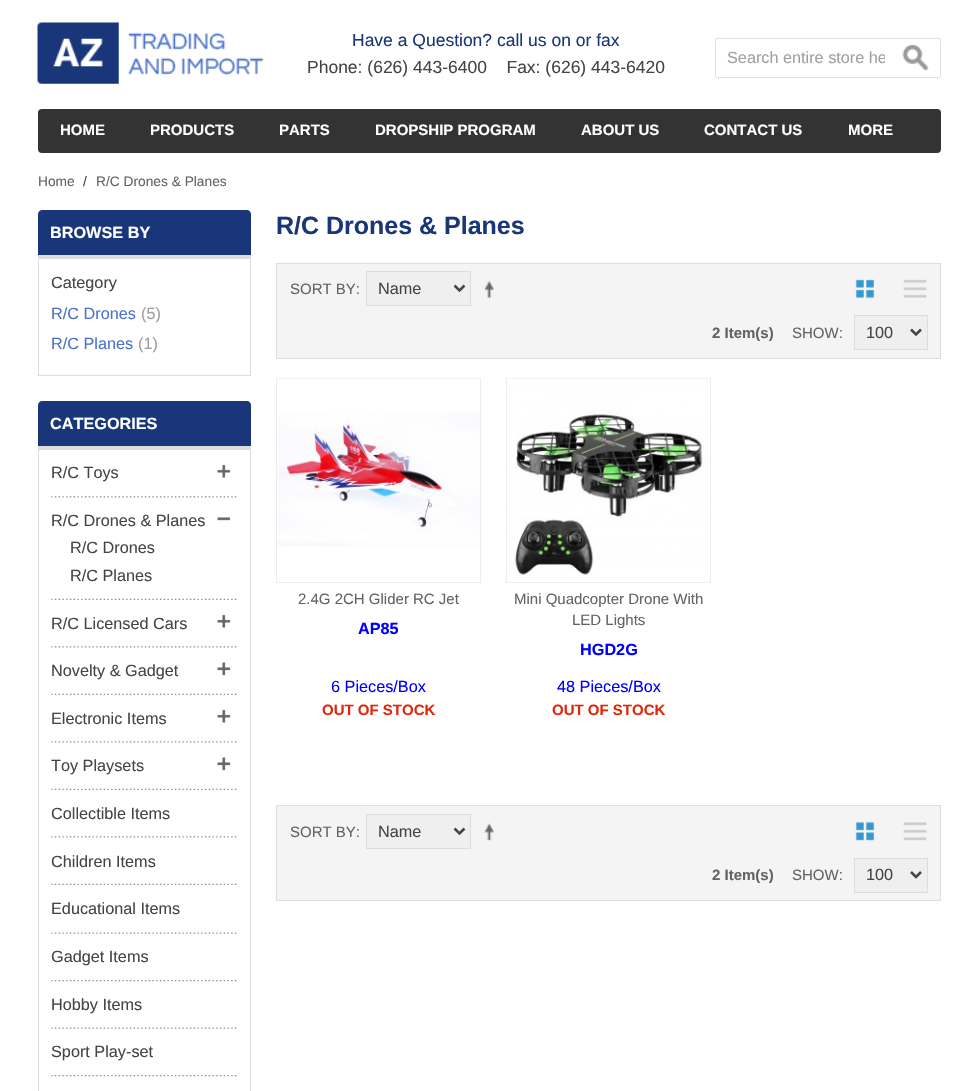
#include "include/core/SkBlurTypes.h"
#include "include/core/SkCanvas.h"
#include "include/core/SkData.h"
#include "include/core/SkFont.h"
#include "include/core/SkFontMgr.h"
#include "include/core/SkImage.h"
#include "include/core/SkMaskFilter.h"
#include "include/core/SkPaint.h"
#include "include/core/SkPathBuilder.h"
#include "include/core/SkTextBlob.h"
#include "include/effects/SkDashPathEffect.h"
#include "include/effects/SkGradientShader.h"
#include "include/utils/SkParsePath.h"

extern sk_sp<SkFontMgr> fontMgr;

void draw(SkCanvas* canvas) {
    SkPaint p;
    p.setAntiAlias(true);
    auto font = [&](const char* family, int weight, float size, bool italic = false) {
        SkFontStyle style(weight, SkFontStyle::kNormal_Width,
            italic ? SkFontStyle::kItalic_Slant : SkFontStyle::kUpright_Slant);
        SkFont result(fontMgr->matchFamilyStyle(family, style), size);
        result.setSubpixel(true);
        return result;
    };
    auto drawPhoto = [&](const char* path, float l, float t, float r, float b) {
        auto image = SkImages::DeferredFromEncodedData(SkData::MakeFromFileName(path));
        canvas->drawImageRect(image, SkRect::MakeLTRB(l, t, r, b), SkSamplingOptions());
    };
    canvas->clear(0xFFFFFFFF);
    drawPhoto("media/1.png", 37, 22, 264, 84);
    auto font1 = font("Liberation Sans", 400, 17.5f);
    p.setColor(0xFF183679);
    canvas->drawString("Have a Question? call us on or fax", 352, 46, font1, p);
    p.setColor(0xFF454545);
    canvas->drawString("Phone: (626) 443-6400    Fax: (626) 443-6420", 307, 73, font1, p);
    p.setStyle(SkPaint::kStroke_Style);
    p.setStrokeWidth(1);
    p.setColor(0xFFDDDDDD);
    canvas->drawRoundRect(SkRect::MakeLTRB(715.5f, 38.5f, 940.5f, 77.5f), 2, 2, p);
    canvas->save();
    canvas->clipRect(SkRect::MakeLTRB(726, 49, 885, 68));
    auto font2 = font("Liberation Sans", 400, 16.25f);
    p.setStyle(SkPaint::kFill_Style);
    p.setColor(0xFFA0A0A0);
    canvas->drawString("Search entire store he", 727, 63, font2, p);
    canvas->restore();
    drawPhoto("media/2.png", 902, 44, 929, 71);
    p.setColor(0xFF333333);
    canvas->drawRoundRect(SkRect::MakeLTRB(38, 109, 941, 153), 4, 4, p);
    auto font3 = font("Liberation Sans", 700, 15);
    p.setColor(0xFFFFFFFF);
    {
        const struct { const char* s; float x, y; } items[] = {
            {"HOME", 60, 135},
            {"PRODUCTS", 150, 135},
            {"PARTS", 279, 135},
            {"DROPSHIP PROGRAM", 375, 135},
            {"ABOUT US", 581, 135},
            {"CONTACT US", 704, 135},
            {"MORE", 848, 135},
        };
        for (auto [s, x, y] : items) {
            canvas->drawString(s, x, y, font3, p);
        }
    }
    auto font4 = font("Liberation Sans", 400, 13.75f);
    p.setColor(0xFF636363);
    canvas->drawString("Home", 38, 186, font4, p);
    p.setColor(0xFF454545);
    canvas->drawString("/", 83, 186, font4, p);
    p.setColor(0xFF636363);
    canvas->drawString("R/C Drones & Planes", 96, 186, font4, p);
    p.setColor(0xFF183679);
    canvas->drawPath(SkPathBuilder().moveTo(42, 210).lineTo(247, 210).cubicTo(249, 210, 251, 212, 251, 214).lineTo(251, 255).lineTo(38, 255).lineTo(38, 214).cubicTo(38, 212, 40, 210, 42, 210).close().detach(), p);
    auto font5 = font("Liberation Sans", 700, 16.25f);
    p.setColor(0xFFFFFFFF);
    canvas->drawString("BROWSE BY", 50, 238, font5, p);
    {
        const struct { float l, t, r, b; SkColor color; } items[] = {
            {38, 255, 251, 259, 0xFFDDDDDD},
            {250, 255, 251, 376, 0xFFDDDDDD},
            {38, 375, 251, 376, 0xFFDDDDDD},
            {38, 255, 39, 376, 0xFFDDDDDD},
        };
        for (auto [l, t, r, b, color] : items) {
            p.setColor(color);
            canvas->drawRect(SkRect::MakeLTRB(l, t, r, b), p);
        }
    }
    p.setColor(0xFF454545);
    canvas->drawString("Category", 51, 288, font2, p);
    p.setColor(0xFF4A72CA);
    canvas->drawString("R/C Drones", 51, 319, font2, p);
    p.setColor(0xFFA0A0A0);
    canvas->drawString("(5)", 141, 319, font2, p);
    p.setColor(0xFF4A72CA);
    canvas->drawString("R/C Planes", 51, 349, font2, p);
    p.setColor(0xFFA0A0A0);
    canvas->drawString("(1)", 138, 349, font2, p);
    auto font6 = font("Liberation Sans", 700, 25);
    p.setColor(0xFF183679);
    canvas->drawString("R/C Drones & Planes", 276, 234, font6, p);
    p.setColor(0xFFF4F4F4);
    canvas->drawRect(SkRect::MakeLTRB(276.5f, 263.5f, 940.5f, 358.5f), p);
    p.setStyle(SkPaint::kStroke_Style);
    p.setColor(0xFFDDDDDD);
    canvas->drawRect(SkRect::MakeLTRB(276.5f, 263.5f, 940.5f, 358.5f), p);
    auto font7 = font("Liberation Sans", 400, 15);
    p.setStyle(SkPaint::kFill_Style);
    p.setColor(0xFF636363);
    canvas->drawString("SORT BY:", 290, 294, font7, p);
    p.setColor(0xFFEFEFEF);
    canvas->drawRect(SkRect::MakeLTRB(366.5f, 271.5f, 470.5f, 305.5f), p);
    p.setStyle(SkPaint::kStroke_Style);
    p.setColor(0xFFDDDDDD);
    canvas->drawRect(SkRect::MakeLTRB(366.5f, 271.5f, 470.5f, 305.5f), p);
    p.setStrokeWidth(2.5f);
    p.setColor(0xFF454545);
    canvas->drawPath(SkPathBuilder().moveTo(454.5f, 285.5f).lineTo(459.5f, 290.5f).lineTo(464.5f, 285.5f).detach(), p);
    p.setStyle(SkPaint::kFill_Style);
    canvas->drawString("Name", 378, 294, font2, p);
    drawPhoto("media/3.png", 484, 281, 494, 299);
    drawPhoto("media/4.png", 855, 279, 875, 299);
    drawPhoto("media/5.png", 903, 279, 927, 298);
    p.setColor(0xFF636363);
    canvas->drawString("2 Item(s)", 712, 338, font3, p);
    canvas->drawString("SHOW:", 792, 338, font7, p);
    p.setColor(0xFFEFEFEF);
    canvas->drawRect(SkRect::MakeLTRB(854.5f, 315.5f, 927.5f, 349.5f), p);
    p.setStyle(SkPaint::kStroke_Style);
    p.setStrokeWidth(1);
    p.setColor(0xFFDDDDDD);
    canvas->drawRect(SkRect::MakeLTRB(854.5f, 315.5f, 927.5f, 349.5f), p);
    p.setStrokeWidth(2.5f);
    p.setColor(0xFF454545);
    canvas->drawPath(SkPathBuilder().moveTo(911, 329.5f).lineTo(916, 334.5f).lineTo(921, 329.5f).detach(), p);
    p.setStyle(SkPaint::kFill_Style);
    canvas->drawString("100", 866, 338, font2, p);
    p.setStyle(SkPaint::kStroke_Style);
    p.setStrokeWidth(1);
    p.setColor(0xFFEDEDED);
    canvas->drawRect(SkRect::MakeLTRB(276.5f, 378.5f, 480.5f, 582.5f), p);
    drawPhoto("media/6.png", 277, 378, 480, 547);
    p.setStyle(SkPaint::kFill_Style);
    p.setColor(0xFF636363);
    canvas->drawString("2.4G 2CH Glider RC Jet", 298, 604, font7, p);
    p.setColor(0xFF0000FF);
    canvas->drawString("AP85", 358, 634, font5, p);
    canvas->drawString("6 Pieces/Box", 331, 692, font2, p);
    p.setColor(0xFFDF280A);
    canvas->drawString("OUT OF STOCK", 322, 715, font3, p);
    p.setStyle(SkPaint::kStroke_Style);
    p.setColor(0xFFEDEDED);
    canvas->drawRect(SkRect::MakeLTRB(506.5f, 378.5f, 710.5f, 582.5f), p);
    drawPhoto("media/7.png", 508, 378, 710, 577);
    p.setStyle(SkPaint::kFill_Style);
    p.setColor(0xFF636363);
    canvas->drawString("Mini Quadcopter Drone With", 514, 604, font7, p);
    canvas->drawString("LED Lights", 572, 625, font7, p);
    p.setColor(0xFF0000FF);
    canvas->drawString("HGD2G", 580, 655, font5, p);
    canvas->drawString("48 Pieces/Box", 557, 692, font2, p);
    p.setColor(0xFFDF280A);
    canvas->drawString("OUT OF STOCK", 552, 715, font3, p);
    p.setColor(0xFFF4F4F4);
    canvas->drawRect(SkRect::MakeLTRB(276.5f, 805.5f, 940.5f, 900.5f), p);
    p.setStyle(SkPaint::kStroke_Style);
    p.setColor(0xFFDDDDDD);
    canvas->drawRect(SkRect::MakeLTRB(276.5f, 805.5f, 940.5f, 900.5f), p);
    p.setStyle(SkPaint::kFill_Style);
    p.setColor(0xFF636363);
    canvas->drawString("SORT BY:", 290, 837, font7, p);
    p.setColor(0xFFEFEFEF);
    canvas->drawRect(SkRect::MakeLTRB(366.5f, 814.5f, 470.5f, 848.5f), p);
    p.setStyle(SkPaint::kStroke_Style);
    p.setColor(0xFFDDDDDD);
    canvas->drawRect(SkRect::MakeLTRB(366.5f, 814.5f, 470.5f, 848.5f), p);
    p.setStrokeWidth(2.5f);
    p.setColor(0xFF454545);
    canvas->drawPath(SkPathBuilder().moveTo(454.5f, 828.5f).lineTo(459.5f, 833.5f).lineTo(464.5f, 828.5f).detach(), p);
    p.setStyle(SkPaint::kFill_Style);
    canvas->drawString("Name", 378, 837, font2, p);
    drawPhoto("media/8.png", 484, 823, 494, 841);
    drawPhoto("media/9.png", 855, 821, 875, 841);
    drawPhoto("media/10.png", 903, 822, 927, 841);
    p.setColor(0xFF636363);
    canvas->drawString("2 Item(s)", 712, 880, font3, p);
    canvas->drawString("SHOW:", 792, 880, font7, p);
    p.setColor(0xFFEFEFEF);
    canvas->drawRect(SkRect::MakeLTRB(854.5f, 858.5f, 927.5f, 892.5f), p);
    p.setStyle(SkPaint::kStroke_Style);
    p.setStrokeWidth(1);
    p.setColor(0xFFDDDDDD);
    canvas->drawRect(SkRect::MakeLTRB(854.5f, 858.5f, 927.5f, 892.5f), p);
    p.setStrokeWidth(2.5f);
    p.setColor(0xFF454545);
    canvas->drawPath(SkPathBuilder().moveTo(911, 872).lineTo(916, 877).lineTo(921, 872).detach(), p);
    p.setStyle(SkPaint::kFill_Style);
    canvas->drawString("100", 866, 880, font2, p);
    p.setColor(0xFF183679);
    canvas->drawPath(SkPathBuilder().moveTo(42, 401).lineTo(247, 401).cubicTo(249, 401, 251, 403, 251, 405).lineTo(251, 446).lineTo(38, 446).lineTo(38, 405).cubicTo(38, 403, 40, 401, 42, 401).close().detach(), p);
    p.setColor(0xFFFFFFFF);
    canvas->drawString("CATEGORIES", 50, 429, font5, p);
    {
        const struct { float l, t, r, b; SkColor color; } items[] = {
            {38, 446, 251, 450, 0xFFDDDDDD},
            {250, 446, 251, 1091, 0xFFDDDDDD},
            {38, 446, 39, 1091, 0xFFDDDDDD},
        };
        for (auto [l, t, r, b, color] : items) {
            p.setColor(color);
            canvas->drawRect(SkRect::MakeLTRB(l, t, r, b), p);
        }
    }
    drawPhoto("media/11.png", 51, 496, 237, 498);
    p.setColor(0xFF454545);
    canvas->drawString("R/C Toys", 51, 478, font2, p);
    drawPhoto("media/12.png", 217, 464, 231, 478);
    drawPhoto("media/13.png", 51, 598, 237, 600);
    canvas->drawString("R/C Drones & Planes", 51, 526, font2, p);
    drawPhoto("media/14.png", 217, 517, 231, 521);
    canvas->drawString("R/C Drones", 70, 553, font2, p);
    canvas->drawString("R/C Planes", 70, 581, font2, p);
    drawPhoto("media/11.png", 51, 646, 237, 648);
    canvas->drawString("R/C Licensed Cars", 51, 629, font2, p);
    drawPhoto("media/12.png", 217, 614, 231, 628);
    drawPhoto("media/13.png", 51, 693, 237, 695);
    canvas->drawString("Novelty & Gadget", 51, 676, font2, p);
    drawPhoto("media/15.png", 217, 662, 231, 676);
    drawPhoto("media/11.png", 51, 741, 237, 743);
    canvas->drawString("Electronic Items", 51, 724, font2, p);
    drawPhoto("media/12.png", 217, 709, 231, 723);
    drawPhoto("media/13.png", 51, 788, 237, 790);
    canvas->drawString("Toy Playsets", 51, 771, font2, p);
    drawPhoto("media/15.png", 217, 757, 231, 771);
    drawPhoto("media/11.png", 51, 836, 237, 838);
    canvas->drawString("Collectible Items", 51, 819, font2, p);
    drawPhoto("media/13.png", 51, 883, 237, 885);
    canvas->drawString("Children Items", 51, 867, font2, p);
    drawPhoto("media/16.png", 51, 932, 237, 934);
    canvas->drawString("Educational Items", 51, 914, font2, p);
    drawPhoto("media/17.png", 51, 980, 237, 982);
    canvas->drawString("Gadget Items", 51, 962, font2, p);
    drawPhoto("media/16.png", 51, 1027, 237, 1029);
    canvas->drawString("Hobby Items", 51, 1010, font2, p);
    drawPhoto("media/17.png", 51, 1075, 237, 1077);
    canvas->drawString("Sport Play-set", 51, 1057, font2, p);
}
